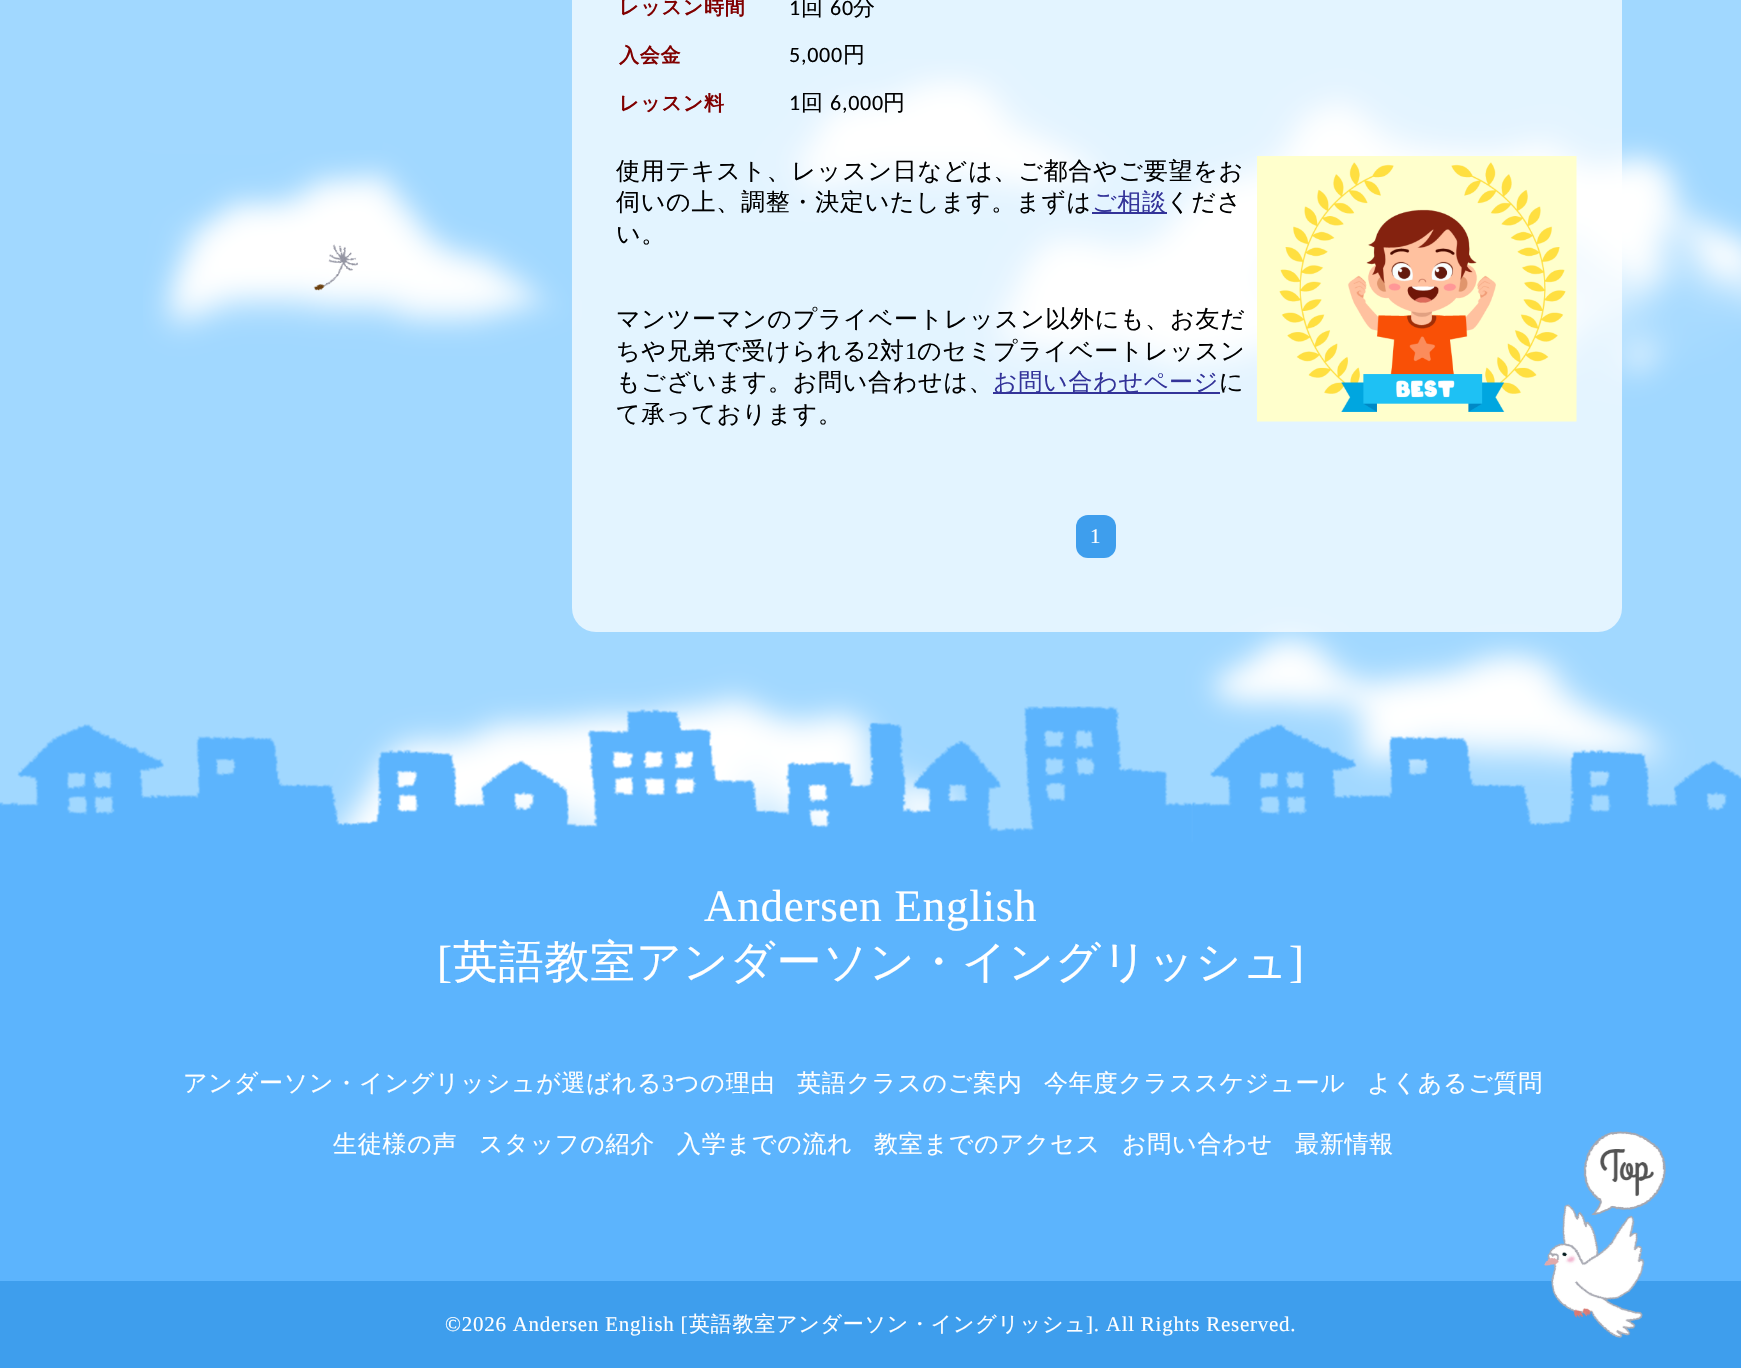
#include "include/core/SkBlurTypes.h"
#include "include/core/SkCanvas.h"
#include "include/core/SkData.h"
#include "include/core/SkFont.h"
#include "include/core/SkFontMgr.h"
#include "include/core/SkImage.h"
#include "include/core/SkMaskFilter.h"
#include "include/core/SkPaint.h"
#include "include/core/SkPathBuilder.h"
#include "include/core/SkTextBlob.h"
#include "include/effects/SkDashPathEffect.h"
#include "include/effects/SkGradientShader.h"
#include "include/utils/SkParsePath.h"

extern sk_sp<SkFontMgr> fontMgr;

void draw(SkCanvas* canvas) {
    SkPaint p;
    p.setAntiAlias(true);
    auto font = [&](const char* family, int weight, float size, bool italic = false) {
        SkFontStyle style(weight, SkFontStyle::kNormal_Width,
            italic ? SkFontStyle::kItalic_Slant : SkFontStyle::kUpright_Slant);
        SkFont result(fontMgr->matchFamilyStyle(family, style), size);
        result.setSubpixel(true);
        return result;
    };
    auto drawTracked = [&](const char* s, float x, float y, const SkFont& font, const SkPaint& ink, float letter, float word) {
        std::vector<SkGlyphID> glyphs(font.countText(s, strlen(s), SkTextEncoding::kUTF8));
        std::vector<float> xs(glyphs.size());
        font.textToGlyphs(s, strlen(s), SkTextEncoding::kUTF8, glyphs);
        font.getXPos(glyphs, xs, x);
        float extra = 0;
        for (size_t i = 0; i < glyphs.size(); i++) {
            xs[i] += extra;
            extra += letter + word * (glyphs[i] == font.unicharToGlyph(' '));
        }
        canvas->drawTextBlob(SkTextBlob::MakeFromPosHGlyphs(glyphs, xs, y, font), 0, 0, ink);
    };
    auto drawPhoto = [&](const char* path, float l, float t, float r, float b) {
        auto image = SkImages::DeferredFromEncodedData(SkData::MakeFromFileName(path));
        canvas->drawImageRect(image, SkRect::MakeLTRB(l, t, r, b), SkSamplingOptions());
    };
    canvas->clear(0xFFA1D8FF);
    drawPhoto("media/1.png", 143, 59, 1741, 828);
    drawPhoto("media/2.png", 313, 244, 359, 291);
    p.setColor(0xB3FFFFFF);
    canvas->drawRoundRect(SkRect::MakeLTRB(572, -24, 1622, 632), 24, 24, p);
    auto font1 = font("WenQuanYi Zen Hei", 700, 20);
    p.setColor(0xFF800000);
    drawTracked("レッスン時間", 619, 14, font1, p, 0.75f, 0);
    auto font2 = font("Carlito", 400, 22);
    p.setColor(0xFF000000);
    drawTracked("1", 789, 15, font2, p, 0.75f, 0);
    auto font3 = font("WenQuanYi Zen Hei", 500, 22);
    drawTracked("回", 801, 15, font3, p, 0.75f, 0);
    drawTracked("60", 830, 15, font2, p, 0.75f, 0);
    drawTracked("分", 853, 15, font3, p, 0.75f, 0);
    p.setColor(0xFF800000);
    drawTracked("入会金", 619, 62, font1, p, 0.75f, 0);
    p.setColor(0xFF000000);
    drawTracked("5,000", 789, 62, font2, p, 0.75f, 0);
    drawTracked("円", 843, 62, font3, p, 0.75f, 0);
    p.setColor(0xFF800000);
    drawTracked("レッスン料", 619, 110, font1, p, 0.75f, 0);
    p.setColor(0xFF000000);
    drawTracked("1", 789, 110, font2, p, 0.75f, 0);
    drawTracked("回", 801, 110, font3, p, 0.75f, 0);
    drawTracked("6,000", 830, 110, font2, p, 0.75f, 0);
    drawTracked("円", 883, 110, font3, p, 0.75f, 0);
    auto font4 = font("WenQuanYi Zen Hei", 500, 24);
    drawTracked("使用テキスト、レッスン日などは、ご都合やご要望をお", 616, 179, font4, p, 0.75f, 0);
    drawTracked("伺いの上、調整・決定いたします。まずは", 616, 210, font4, p, 0.75f, 0);
    p.setColor(0xFF333399);
    canvas->drawRect(SkRect::MakeLTRB(1092, 212, 1167, 214), p);
    drawTracked("ご相談", 1092, 210, font4, p, 0.75f, 0);
    p.setColor(0xFF000000);
    drawTracked("くださ", 1166, 210, font4, p, 0.75f, 0);
    drawTracked("い。", 616, 242, font4, p, 0.75f, 0);
    drawPhoto("media/3.png", 1257, 156, 1577, 422);
    drawTracked("マンツーマンのプライベートレッスン以外にも、お友だ", 616, 327, font4, p, 0.75f, 0);
    drawTracked("ちや兄弟で受けられる", 616, 359, font4, p, 0.75f, 0);
    auto font5 = font("Liberation Serif", 400, 24);
    drawTracked("2", 867, 359, font5, p, 0.75f, 0);
    drawTracked("対", 880, 359, font4, p, 0.75f, 0);
    drawTracked("1", 905, 359, font5, p, 0.75f, 0);
    drawTracked("のセミプライベートレッスン", 917, 359, font4, p, 0.75f, 0);
    drawTracked("もございます。お問い合わせは、", 616, 390, font4, p, 0.75f, 0);
    p.setColor(0xFF333399);
    canvas->drawRect(SkRect::MakeLTRB(993, 392, 1220, 394), p);
    drawTracked("お問い合わせページ", 993, 390, font4, p, 0.75f, 0);
    p.setColor(0xFF000000);
    drawTracked("に", 1219, 390, font4, p, 0.75f, 0);
    drawTracked("て承っております。", 616, 422, font4, p, 0.75f, 0);
    p.setColor(0xFF3E9EED);
    canvas->drawRoundRect(SkRect::MakeLTRB(1076, 515, 1116, 558), 12, 12, p);
    auto font6 = font("Liberation Serif", 400, 21);
    p.setColor(0xFFFFFFFF);
    drawTracked("1", 1090, 543, font6, p, 0.75f, 0);
    drawPhoto("media/4.png", 0, 706, 1741, 880);
    p.setColor(0xFF5CB4FD);
    canvas->drawRect(SkRect::MakeLTRB(0, 880, 1741, 1281), p);
    auto font7 = font("Liberation Serif", 400, 45);
    p.setColor(0xFFFFFFFF);
    drawTracked("Andersen English", 704, 921, font7, p, 0.75f, 0);
    drawTracked("[", 437, 977, font7, p, 0.75f, 0);
    auto font8 = font("WenQuanYi Zen Hei", 500, 45);
    drawTracked("英語教室アンダーソン・イングリッシュ", 453, 977, font8, p, 0.75f, 0);
    drawTracked("]", 1289, 977, font7, p, 0.75f, 0);
    drawTracked("アンダーソン・イングリッシュが選ばれる", 183, 1091, font4, p, 0.75f, 0);
    drawTracked("3", 662, 1091, font5, p, 0.75f, 0);
    {
        const struct { const char* s; float x, y; } items[] = {
            {"つの理由", 675, 1091},
            {"英語クラスのご案内", 797, 1091},
            {"今年度クラススケジュール", 1044, 1091},
            {"よくあるご質問", 1367, 1091},
            {"生徒様の声", 333, 1152},
            {"スタッフの紹介", 479, 1152},
            {"入学までの流れ", 677, 1152},
            {"教室までのアクセス", 874, 1152},
            {"お問い合わせ", 1122, 1152},
            {"最新情報", 1295, 1152},
        };
        for (auto [s, x, y] : items) {
            drawTracked(s, x, y, font4, p, 0.75f, 0);
        }
    }
    p.setColor(0xFF3E9EED);
    canvas->drawRect(SkRect::MakeLTRB(0, 1281, 1741, 1368), p);
    p.setColor(0xFFFFFFFF);
    drawTracked("©2026 Andersen English [", 445, 1331, font6, p, 0.75f, 0);
    auto font9 = font("WenQuanYi Zen Hei", 500, 21);
    drawTracked("英語教室アンダーソン・イングリッシュ", 689, 1331, font9, p, 0.75f, 0);
    drawTracked("]. All Rights Reserved.", 1086, 1331, font6, p, 0.75f, 0);
    drawPhoto("media/5.png", 1544, 1131, 1666, 1338);
}
